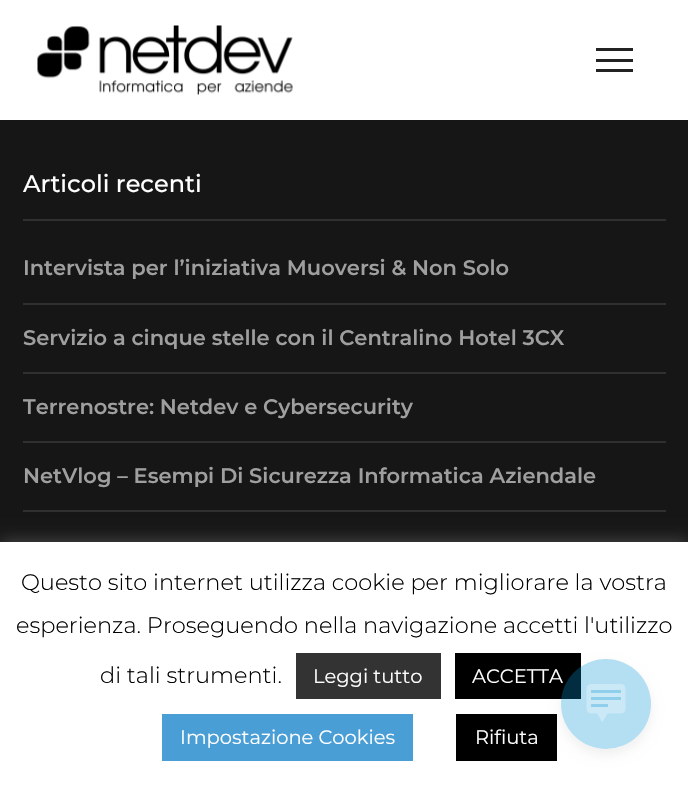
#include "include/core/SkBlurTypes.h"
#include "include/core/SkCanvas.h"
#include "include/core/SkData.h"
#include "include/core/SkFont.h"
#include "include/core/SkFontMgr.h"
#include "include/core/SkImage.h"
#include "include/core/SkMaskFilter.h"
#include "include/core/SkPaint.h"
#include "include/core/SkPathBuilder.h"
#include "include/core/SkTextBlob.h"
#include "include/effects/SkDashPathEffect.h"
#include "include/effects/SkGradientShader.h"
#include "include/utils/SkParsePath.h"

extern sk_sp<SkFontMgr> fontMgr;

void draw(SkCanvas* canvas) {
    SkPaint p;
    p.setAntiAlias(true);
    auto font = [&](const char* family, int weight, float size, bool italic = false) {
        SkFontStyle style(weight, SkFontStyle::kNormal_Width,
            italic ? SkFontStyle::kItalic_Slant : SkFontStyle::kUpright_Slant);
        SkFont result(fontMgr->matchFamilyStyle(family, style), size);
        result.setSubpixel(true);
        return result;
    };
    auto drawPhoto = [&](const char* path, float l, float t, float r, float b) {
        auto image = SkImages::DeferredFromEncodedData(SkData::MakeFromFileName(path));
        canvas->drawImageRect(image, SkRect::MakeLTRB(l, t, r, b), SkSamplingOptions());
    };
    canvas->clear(0xFF161616);
    p.setColor(0xFFFFFFFF);
    canvas->drawRect(SkRect::MakeLTRB(0, 0, 688, 120), p);
    drawPhoto("media/1.png", 37, 25, 293, 95);
    {
        const struct { float l, t, r, b; SkColor color; } items[] = {
            {596, 48, 633, 51, 0xFF232323},
            {596, 59, 633, 62, 0xFF232323},
            {596, 69, 633, 72, 0xFF232323},
            {23, 219, 666, 221, 0xFF303030},
        };
        for (auto [l, t, r, b, color] : items) {
            p.setColor(color);
            canvas->drawRect(SkRect::MakeLTRB(l, t, r, b), p);
        }
    }
    auto font1 = font("Montserrat", 500, 24);
    p.setColor(0xFFFFFFFF);
    canvas->drawString("Articoli recenti", 23, 192, font1, p);
    p.setColor(0xFF303030);
    canvas->drawRect(SkRect::MakeLTRB(23, 303, 666, 305), p);
    auto font2 = font("Montserrat", 600, 21);
    p.setColor(0xFF9F9F9F);
    canvas->drawString("Intervista per l’iniziativa Muoversi & Non Solo", 23, 275, font2, p);
    p.setColor(0xFF303030);
    canvas->drawRect(SkRect::MakeLTRB(23, 372, 666, 374), p);
    p.setColor(0xFF9F9F9F);
    canvas->drawString("Servizio a cinque stelle con il Centralino Hotel 3CX", 23, 345, font2, p);
    p.setColor(0xFF303030);
    canvas->drawRect(SkRect::MakeLTRB(23, 441, 666, 443), p);
    canvas->save();
    canvas->clipRect(SkRect::MakeLTRB(23, 165, 666, 603));
    p.setColor(0xFF9F9F9F);
    canvas->drawString("Terrenostre: Netdev e Cybersecurity", 23, 414, font2, p);
    canvas->restore();
    p.setColor(0xFF303030);
    canvas->drawRect(SkRect::MakeLTRB(23, 510, 666, 512), p);
    p.setColor(0xFF9F9F9F);
    canvas->drawString("NetVlog – Esempi Di Sicurezza Informatica Aziendale", 23, 483, font2, p);
    p.setColor(0x4DACABAB);
    p.setMaskFilter(SkMaskFilter::MakeBlur(kNormal_SkBlurStyle, 7.5f));
    canvas->drawRect(SkRect::MakeLTRB(0, 540, 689, 785), p);
    p.setMaskFilter(nullptr);
    p.setColor(0xFFFFFFFF);
    canvas->drawRect(SkRect::MakeLTRB(0, 542, 688, 786), p);
    auto font3 = font("Montserrat", 300, 22.5f);
    p.setColor(0xFF000000);
    {
        const struct { const char* s; float x, y; } items[] = {
            {"Questo sito internet utilizza cookie per migliorare la vostra", 21, 590},
            {"esperienza. Proseguendo nella navigazione accetti l'utilizzo", 16, 633},
            {"di tali strumenti.", 100, 683},
        };
        for (auto [s, x, y] : items) {
            canvas->drawString(s, x, y, font3, p);
        }
    }
    p.setColor(0xFF333333);
    canvas->drawRect(SkRect::MakeLTRB(296, 653, 441, 699), p);
    auto font4 = font("Montserrat", 400, 19.5f);
    p.setColor(0xFFFFFFFF);
    canvas->drawString("Leggi tutto", 313, 683, font4, p);
    p.setColor(0xFF000000);
    canvas->drawRect(SkRect::MakeLTRB(455, 653, 581, 699), p);
    p.setColor(0xFFFFFFFF);
    canvas->drawString("ACCETTA", 472, 683, font4, p);
    p.setColor(0xFF4A9ED6);
    canvas->drawRect(SkRect::MakeLTRB(162, 714, 413, 761), p);
    p.setColor(0xFFFFFFFF);
    canvas->drawString("Impostazione Cookies", 180, 744, font4, p);
    p.setColor(0xFF000000);
    canvas->drawRect(SkRect::MakeLTRB(456, 714, 557, 761), p);
    p.setColor(0xFFFFFFFF);
    canvas->drawString("Rifiuta", 475, 744, font4, p);
    canvas->save();
    canvas->clipPath(SkPathBuilder(SkPathFillType::kEvenOdd).moveTo(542, 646).lineTo(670, 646).lineTo(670, 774).lineTo(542, 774).close().moveTo(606, 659).cubicTo(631, 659, 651, 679, 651, 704).cubicTo(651, 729, 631, 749, 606, 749).cubicTo(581, 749, 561, 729, 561, 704).cubicTo(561, 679, 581, 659, 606, 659).close().detach(), true);
    p.setColor(0x0F000000);
    p.setMaskFilter(SkMaskFilter::MakeBlur(kNormal_SkBlurStyle, 6));
    canvas->drawRoundRect(SkRect::MakeLTRB(561, 665, 651, 755), 45, 45, p);
    p.setMaskFilter(nullptr);
    canvas->restore();
    p.setColor(0x4D0596D4);
    canvas->drawCircle(606, 704, 45, p);
    drawPhoto("media/2.png", 586, 684, 626, 722);
}
